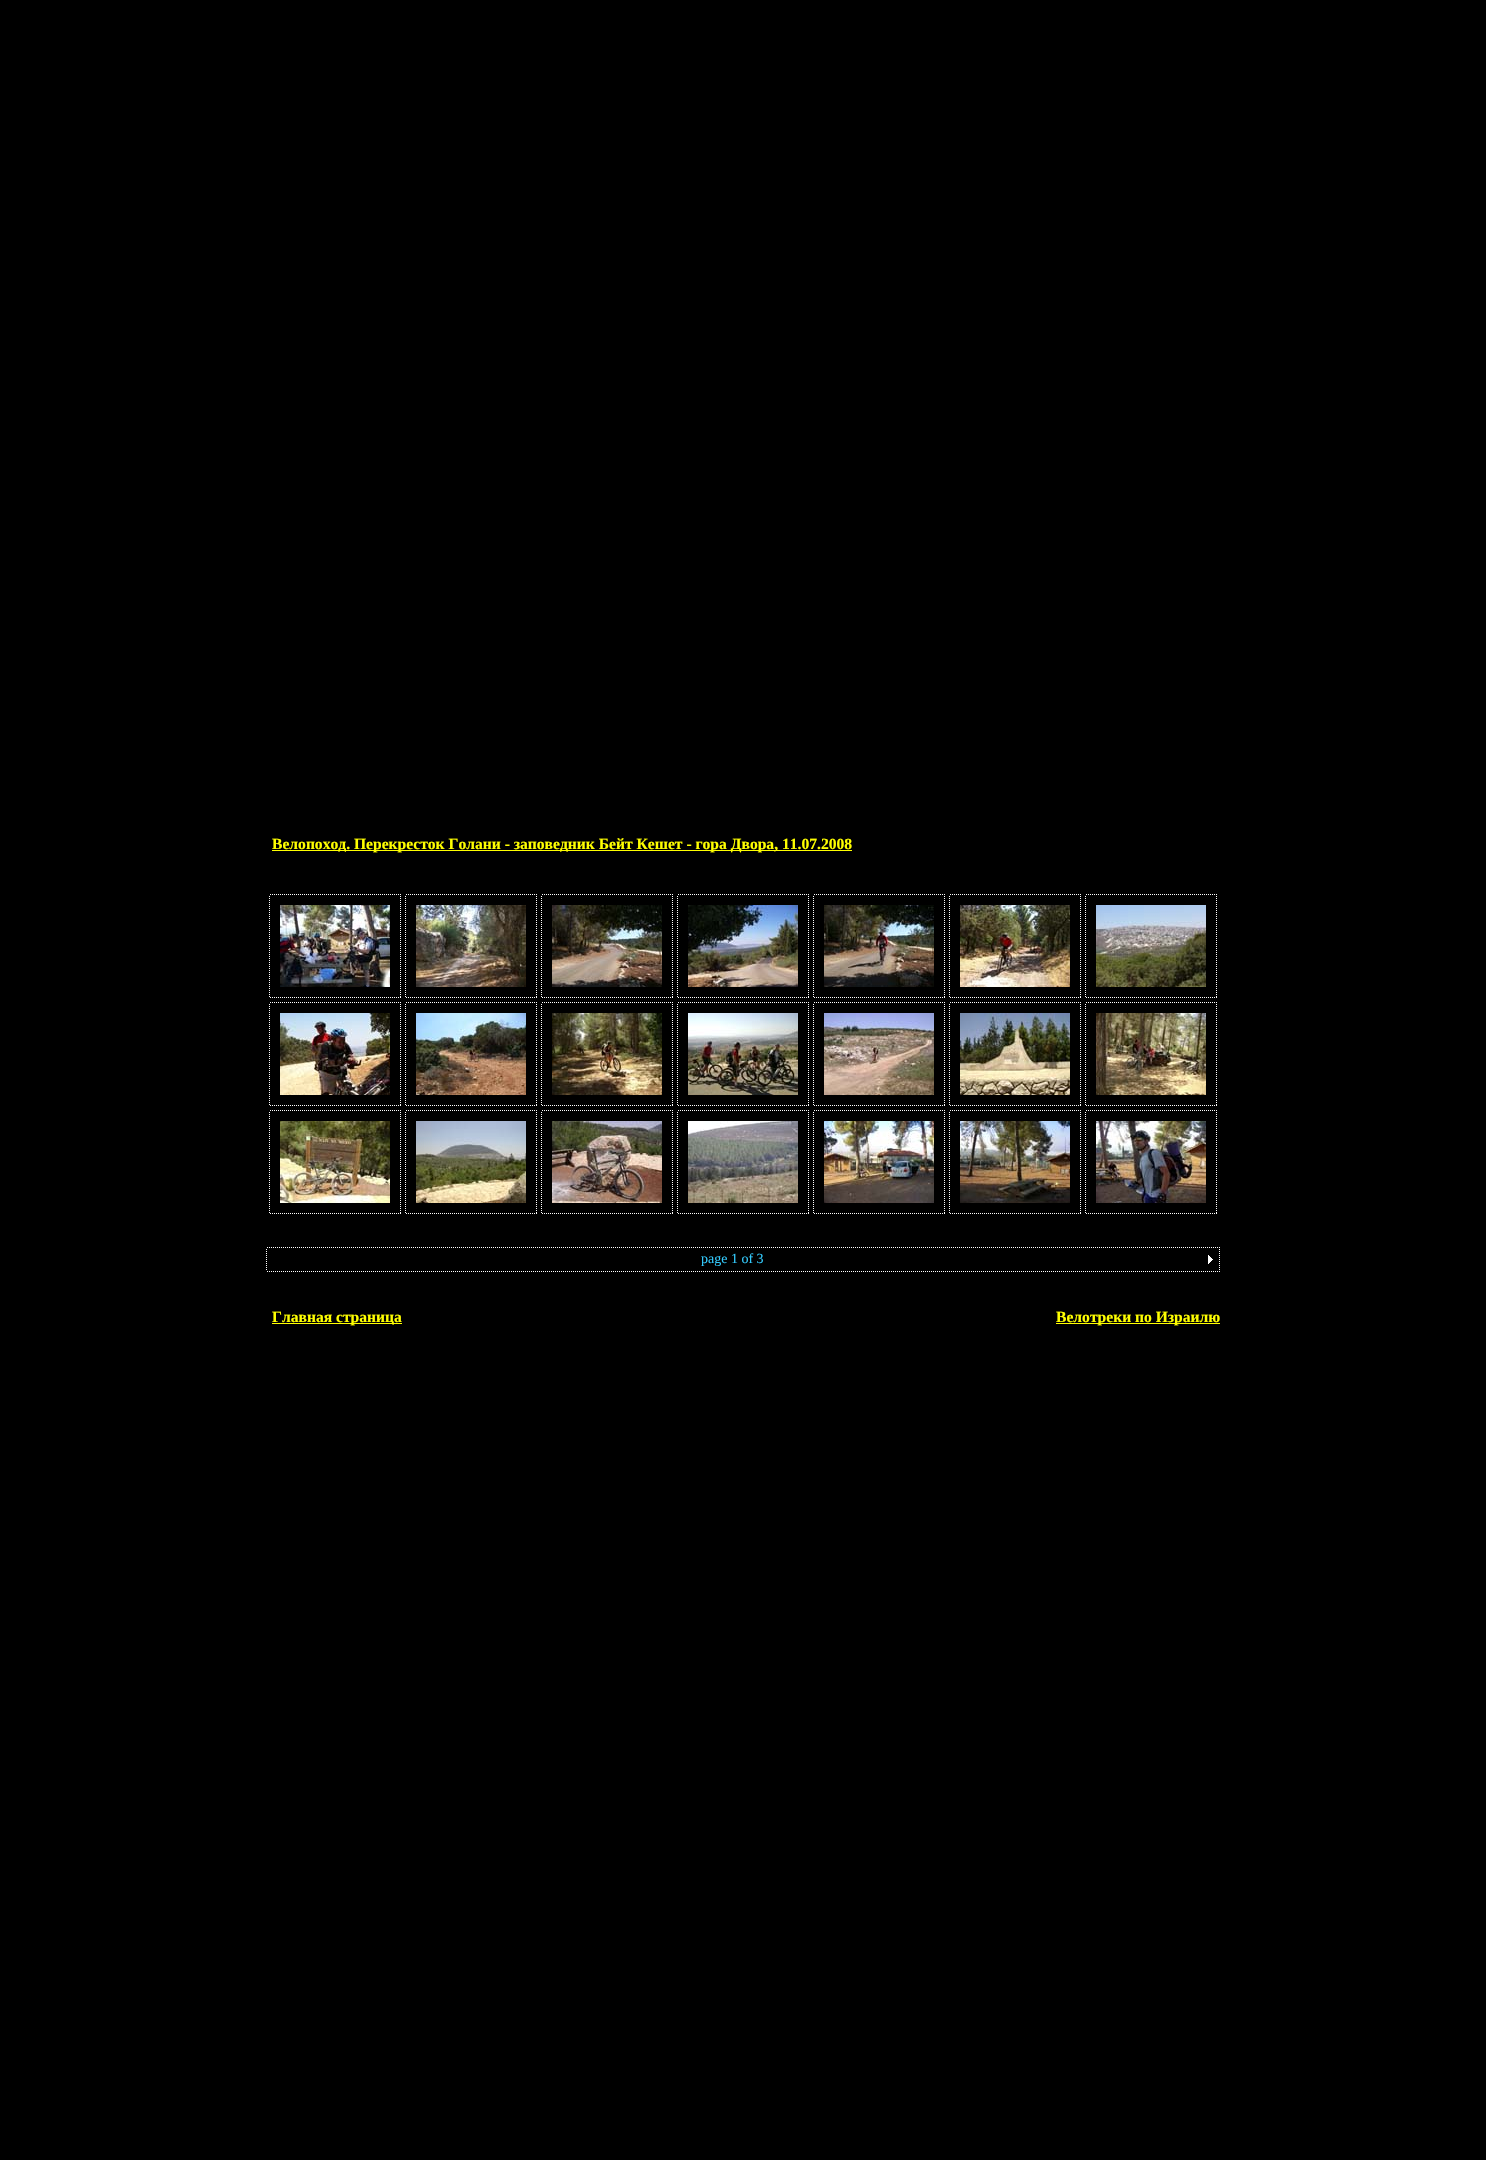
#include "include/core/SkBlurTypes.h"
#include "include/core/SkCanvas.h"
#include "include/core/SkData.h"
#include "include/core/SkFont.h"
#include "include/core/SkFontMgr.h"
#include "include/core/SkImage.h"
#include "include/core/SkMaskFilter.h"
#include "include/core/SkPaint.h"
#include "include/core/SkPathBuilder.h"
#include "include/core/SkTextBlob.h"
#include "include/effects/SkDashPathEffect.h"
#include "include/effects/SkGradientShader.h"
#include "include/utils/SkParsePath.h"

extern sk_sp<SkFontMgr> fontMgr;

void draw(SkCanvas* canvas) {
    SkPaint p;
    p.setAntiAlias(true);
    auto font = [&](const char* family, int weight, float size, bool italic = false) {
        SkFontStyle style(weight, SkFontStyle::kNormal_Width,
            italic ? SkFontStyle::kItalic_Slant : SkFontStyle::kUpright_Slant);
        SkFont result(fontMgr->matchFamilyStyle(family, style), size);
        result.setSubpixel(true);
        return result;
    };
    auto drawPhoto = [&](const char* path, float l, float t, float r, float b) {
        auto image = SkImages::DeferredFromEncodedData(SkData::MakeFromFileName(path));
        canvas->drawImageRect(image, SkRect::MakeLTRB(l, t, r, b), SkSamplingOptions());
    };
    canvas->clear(0xFF000000);
    p.setColor(0xFFFFFF00);
    canvas->drawRect(SkRect::MakeLTRB(272, 850, 852, 851), p);
    auto font1 = font("Liberation Serif", 700, 15.6f);
    canvas->drawString("Велопоход. Перекресток Голани - заповедник Бейт Кешет - гора Двора, 11.07.2008", 272, 849, font1, p);
    drawPhoto("media/1.png", 270, 894, 401, 895);
    drawPhoto("media/2.png", 269, 896, 270, 997);
    drawPhoto("media/3.png", 280, 905, 390, 987);
    drawPhoto("media/2.png", 400, 896, 401, 997);
    drawPhoto("media/1.png", 270, 997, 401, 998);
    drawPhoto("media/1.png", 406, 894, 537, 895);
    drawPhoto("media/2.png", 405, 896, 406, 997);
    drawPhoto("media/4.png", 416, 905, 526, 987);
    drawPhoto("media/2.png", 536, 896, 537, 997);
    drawPhoto("media/1.png", 406, 997, 537, 998);
    drawPhoto("media/1.png", 542, 894, 673, 895);
    drawPhoto("media/2.png", 541, 896, 542, 997);
    drawPhoto("media/5.png", 552, 905, 662, 987);
    drawPhoto("media/2.png", 672, 896, 673, 997);
    drawPhoto("media/1.png", 542, 997, 673, 998);
    drawPhoto("media/1.png", 678, 894, 809, 895);
    drawPhoto("media/2.png", 677, 896, 678, 997);
    drawPhoto("media/6.png", 688, 905, 798, 987);
    drawPhoto("media/2.png", 808, 896, 809, 997);
    drawPhoto("media/1.png", 678, 997, 809, 998);
    drawPhoto("media/1.png", 814, 894, 945, 895);
    drawPhoto("media/2.png", 813, 896, 814, 997);
    drawPhoto("media/7.png", 824, 905, 934, 987);
    drawPhoto("media/2.png", 944, 896, 945, 997);
    drawPhoto("media/1.png", 814, 997, 945, 998);
    drawPhoto("media/1.png", 950, 894, 1081, 895);
    drawPhoto("media/2.png", 949, 896, 950, 997);
    drawPhoto("media/8.png", 960, 905, 1070, 987);
    drawPhoto("media/2.png", 1080, 896, 1081, 997);
    drawPhoto("media/1.png", 950, 997, 1081, 998);
    drawPhoto("media/1.png", 1086, 894, 1217, 895);
    drawPhoto("media/2.png", 1085, 896, 1086, 997);
    drawPhoto("media/9.png", 1096, 905, 1206, 987);
    drawPhoto("media/2.png", 1216, 896, 1217, 997);
    drawPhoto("media/1.png", 1086, 997, 1217, 998);
    drawPhoto("media/1.png", 270, 1002, 401, 1003);
    drawPhoto("media/2.png", 269, 1004, 270, 1105);
    drawPhoto("media/10.png", 280, 1013, 390, 1095);
    drawPhoto("media/2.png", 400, 1004, 401, 1105);
    drawPhoto("media/1.png", 270, 1105, 401, 1106);
    drawPhoto("media/1.png", 406, 1002, 537, 1003);
    drawPhoto("media/2.png", 405, 1004, 406, 1105);
    drawPhoto("media/11.png", 416, 1013, 526, 1095);
    drawPhoto("media/2.png", 536, 1004, 537, 1105);
    drawPhoto("media/1.png", 406, 1105, 537, 1106);
    drawPhoto("media/1.png", 542, 1002, 673, 1003);
    drawPhoto("media/2.png", 541, 1004, 542, 1105);
    drawPhoto("media/12.png", 552, 1013, 662, 1095);
    drawPhoto("media/2.png", 672, 1004, 673, 1105);
    drawPhoto("media/1.png", 542, 1105, 673, 1106);
    drawPhoto("media/1.png", 678, 1002, 809, 1003);
    drawPhoto("media/2.png", 677, 1004, 678, 1105);
    drawPhoto("media/13.png", 688, 1013, 798, 1095);
    drawPhoto("media/2.png", 808, 1004, 809, 1105);
    drawPhoto("media/1.png", 678, 1105, 809, 1106);
    drawPhoto("media/1.png", 814, 1002, 945, 1003);
    drawPhoto("media/2.png", 813, 1004, 814, 1105);
    drawPhoto("media/14.png", 824, 1013, 934, 1095);
    drawPhoto("media/2.png", 944, 1004, 945, 1105);
    drawPhoto("media/1.png", 814, 1105, 945, 1106);
    drawPhoto("media/1.png", 950, 1002, 1081, 1003);
    drawPhoto("media/2.png", 949, 1004, 950, 1105);
    drawPhoto("media/15.png", 960, 1013, 1070, 1095);
    drawPhoto("media/2.png", 1080, 1004, 1081, 1105);
    drawPhoto("media/1.png", 950, 1105, 1081, 1106);
    drawPhoto("media/1.png", 1086, 1002, 1217, 1003);
    drawPhoto("media/2.png", 1085, 1004, 1086, 1105);
    drawPhoto("media/16.png", 1096, 1013, 1206, 1095);
    drawPhoto("media/2.png", 1216, 1004, 1217, 1105);
    drawPhoto("media/1.png", 1086, 1105, 1217, 1106);
    drawPhoto("media/1.png", 270, 1110, 401, 1111);
    drawPhoto("media/2.png", 269, 1112, 270, 1213);
    drawPhoto("media/17.png", 280, 1121, 390, 1203);
    drawPhoto("media/2.png", 400, 1112, 401, 1213);
    drawPhoto("media/1.png", 270, 1213, 401, 1214);
    drawPhoto("media/1.png", 406, 1110, 537, 1111);
    drawPhoto("media/2.png", 405, 1112, 406, 1213);
    drawPhoto("media/18.png", 416, 1121, 526, 1203);
    drawPhoto("media/2.png", 536, 1112, 537, 1213);
    drawPhoto("media/1.png", 406, 1213, 537, 1214);
    drawPhoto("media/1.png", 542, 1110, 673, 1111);
    drawPhoto("media/2.png", 541, 1112, 542, 1213);
    drawPhoto("media/19.png", 552, 1121, 662, 1203);
    drawPhoto("media/2.png", 672, 1112, 673, 1213);
    drawPhoto("media/1.png", 542, 1213, 673, 1214);
    drawPhoto("media/1.png", 678, 1110, 809, 1111);
    drawPhoto("media/2.png", 677, 1112, 678, 1213);
    drawPhoto("media/20.png", 688, 1121, 798, 1203);
    drawPhoto("media/2.png", 808, 1112, 809, 1213);
    drawPhoto("media/1.png", 678, 1213, 809, 1214);
    drawPhoto("media/1.png", 814, 1110, 945, 1111);
    drawPhoto("media/2.png", 813, 1112, 814, 1213);
    drawPhoto("media/21.png", 824, 1121, 934, 1203);
    drawPhoto("media/2.png", 944, 1112, 945, 1213);
    drawPhoto("media/1.png", 814, 1213, 945, 1214);
    drawPhoto("media/1.png", 950, 1110, 1081, 1111);
    drawPhoto("media/2.png", 949, 1112, 950, 1213);
    drawPhoto("media/22.png", 960, 1121, 1070, 1203);
    drawPhoto("media/2.png", 1080, 1112, 1081, 1213);
    drawPhoto("media/1.png", 950, 1213, 1081, 1214);
    drawPhoto("media/1.png", 1086, 1110, 1217, 1111);
    drawPhoto("media/2.png", 1085, 1112, 1086, 1213);
    drawPhoto("media/23.png", 1096, 1121, 1206, 1203);
    drawPhoto("media/2.png", 1216, 1112, 1217, 1213);
    drawPhoto("media/1.png", 1086, 1213, 1217, 1214);
    drawPhoto("media/24.png", 267, 1247, 1220, 1248);
    drawPhoto("media/25.png", 266, 1249, 267, 1270);
    auto font2 = font("Liberation Serif", 400, 14);
    p.setColor(0xFF33CCFF);
    canvas->drawString("page 1 of 3", 701, 1263, font2, p);
    drawPhoto("media/26.png", 1208, 1255, 1213, 1264);
    drawPhoto("media/25.png", 1219, 1249, 1220, 1270);
    drawPhoto("media/24.png", 267, 1271, 1220, 1272);
    p.setColor(0xFFFFFF00);
    canvas->drawRect(SkRect::MakeLTRB(272, 1323, 402, 1324), p);
    canvas->drawString("Главная страница", 272, 1322, font1, p);
    canvas->drawRect(SkRect::MakeLTRB(1056, 1323, 1220, 1324), p);
    canvas->drawString("Велотреки по Израилю", 1056, 1322, font1, p);
}
